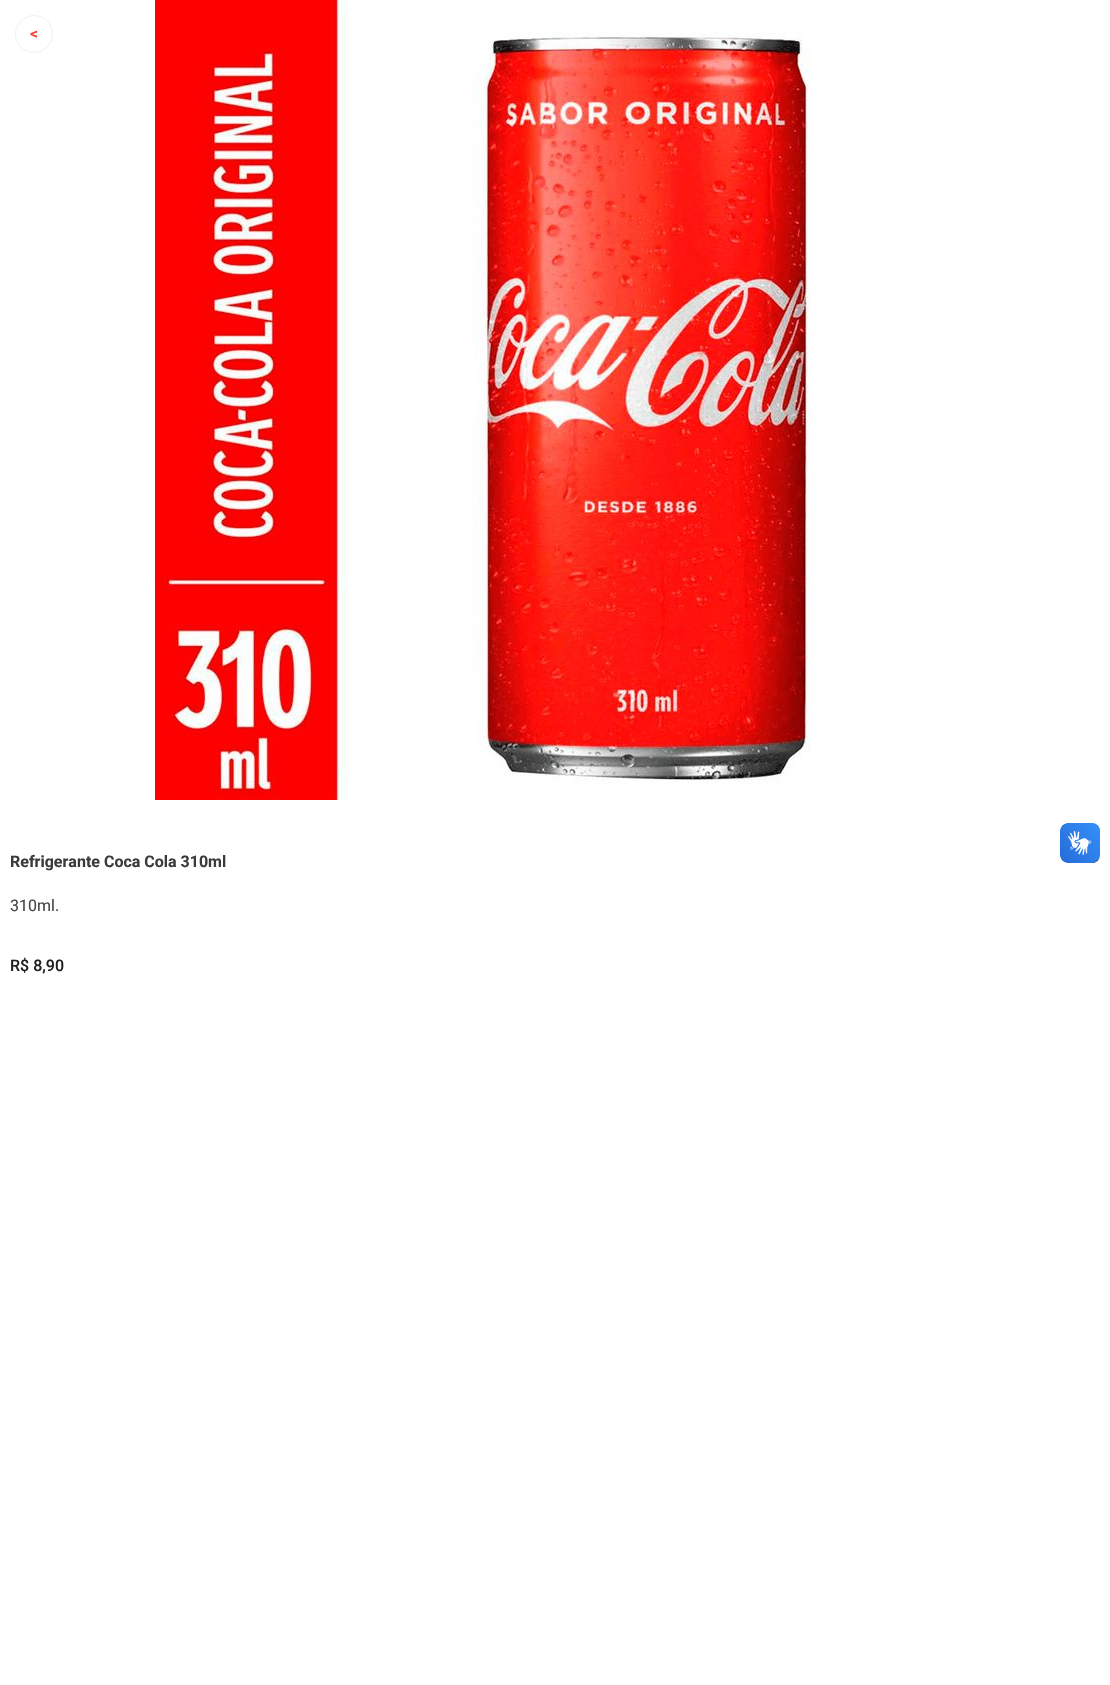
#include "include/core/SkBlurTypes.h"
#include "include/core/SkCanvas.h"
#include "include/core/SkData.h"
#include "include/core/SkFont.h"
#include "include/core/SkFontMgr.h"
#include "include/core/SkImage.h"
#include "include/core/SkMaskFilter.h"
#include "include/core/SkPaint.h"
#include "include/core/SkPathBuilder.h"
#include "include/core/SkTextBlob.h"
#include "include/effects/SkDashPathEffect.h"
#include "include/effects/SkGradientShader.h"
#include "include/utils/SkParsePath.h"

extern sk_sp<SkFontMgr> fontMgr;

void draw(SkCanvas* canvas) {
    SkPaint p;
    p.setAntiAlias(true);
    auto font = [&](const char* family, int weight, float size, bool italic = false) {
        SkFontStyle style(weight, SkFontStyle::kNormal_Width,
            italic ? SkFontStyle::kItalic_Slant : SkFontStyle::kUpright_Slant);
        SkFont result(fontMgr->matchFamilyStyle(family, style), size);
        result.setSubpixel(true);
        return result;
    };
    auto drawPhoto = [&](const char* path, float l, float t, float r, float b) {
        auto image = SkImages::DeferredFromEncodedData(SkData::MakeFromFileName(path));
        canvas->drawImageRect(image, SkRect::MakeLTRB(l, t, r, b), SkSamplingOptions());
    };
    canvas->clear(0xFFFFFFFF);
    p.setStyle(SkPaint::kStroke_Style);
    p.setStrokeWidth(1);
    p.setColor(0xFFF1F1F1);
    canvas->drawCircle(34, 34, 18.5f, p);
    auto font1 = font("Roboto", 600, 16);
    p.setStyle(SkPaint::kFill_Style);
    p.setColor(0xFFF44336);
    canvas->drawString("<", 30, 39, font1, p);
    drawPhoto("media/1.png", 155, 0, 811, 800);
    auto font2 = font("Roboto", 700, 16);
    p.setColor(0xFF3B3B3B);
    canvas->drawString("Refrigerante Coca Cola 310ml", 10, 867, font2, p);
    auto font3 = font("Roboto", 400, 16);
    p.setColor(0xFF444444);
    canvas->drawString("310ml.", 10, 911, font3, p);
    auto font4 = font("Roboto", 500, 16);
    p.setColor(0xFF202020);
    canvas->drawString("R$ 8,90", 10, 971, font4, p);
    drawPhoto("media/2.png", 1060, 823, 1100, 863);
    drawPhoto("media/3.png", 1060, 823, 1100, 863);
}
